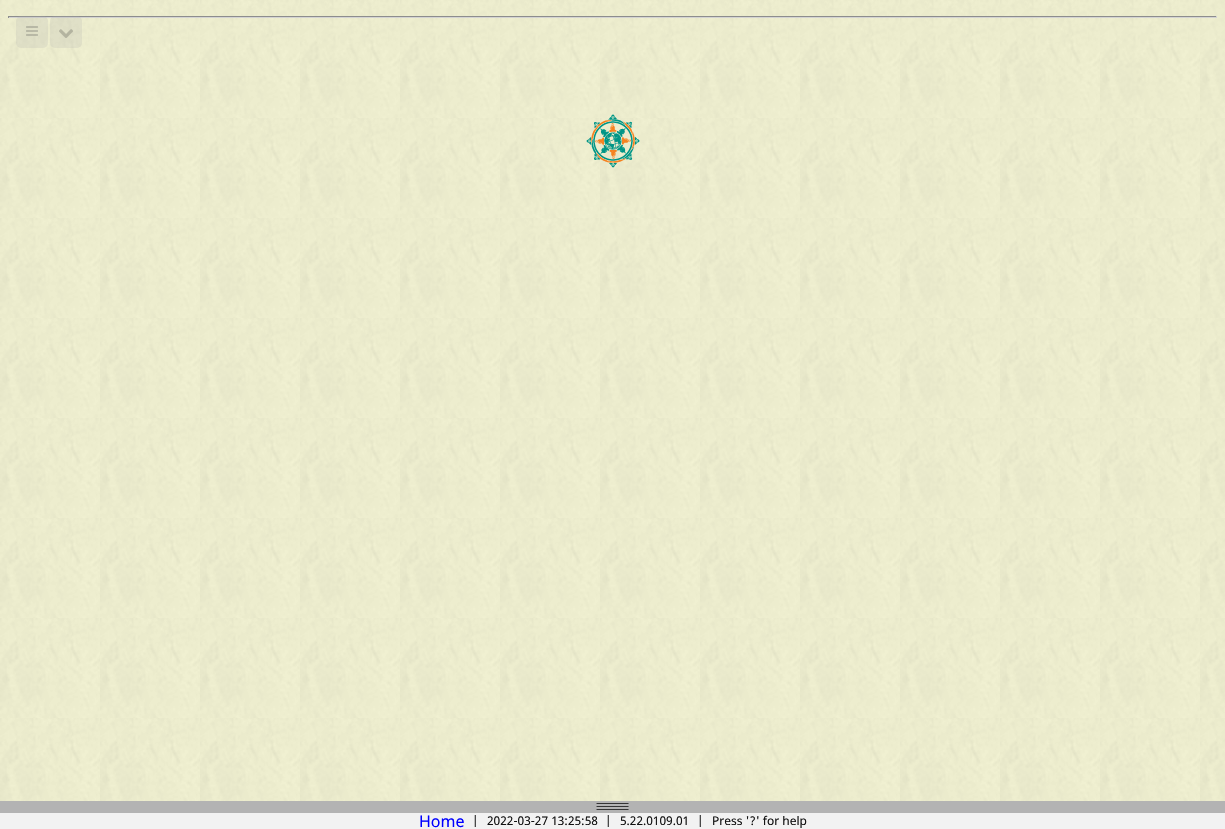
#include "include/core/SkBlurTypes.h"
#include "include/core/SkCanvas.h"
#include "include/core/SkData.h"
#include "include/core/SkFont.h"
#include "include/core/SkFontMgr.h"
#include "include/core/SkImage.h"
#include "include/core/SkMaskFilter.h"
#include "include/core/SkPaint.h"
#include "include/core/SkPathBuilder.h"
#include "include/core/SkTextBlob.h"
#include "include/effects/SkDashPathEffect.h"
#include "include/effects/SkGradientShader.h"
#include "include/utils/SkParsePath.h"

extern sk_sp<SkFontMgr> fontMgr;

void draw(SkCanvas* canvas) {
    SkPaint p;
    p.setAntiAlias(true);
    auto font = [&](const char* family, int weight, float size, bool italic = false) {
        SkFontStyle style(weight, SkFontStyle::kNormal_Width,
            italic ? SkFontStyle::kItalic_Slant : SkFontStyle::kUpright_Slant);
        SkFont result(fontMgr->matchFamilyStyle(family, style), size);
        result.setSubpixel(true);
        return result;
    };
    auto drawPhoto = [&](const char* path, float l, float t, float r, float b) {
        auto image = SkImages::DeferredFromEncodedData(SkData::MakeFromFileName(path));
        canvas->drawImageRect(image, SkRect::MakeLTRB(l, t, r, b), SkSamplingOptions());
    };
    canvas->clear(0xFFFFFFDD);
    drawPhoto("media/1.png", 0, 0, 1225, 18);
    {
        const struct { float l, t, r, b; SkColor color; } items[] = {
            {8, 16, 1217, 17, 0xFF8D8D8D},
            {1216, 16, 1217, 18, 0xFFD3D3D3},
            {8, 17, 1217, 18, 0xFFD3D3D3},
            {8, 16, 9, 18, 0xFF8D8D8D},
        };
        for (auto [l, t, r, b, color] : items) {
            p.setColor(color);
            canvas->drawRect(SkRect::MakeLTRB(l, t, r, b), p);
        }
    }
    drawPhoto("media/2.png", 0, 18, 1225, 801);
    drawPhoto("media/3.png", 586, 114, 640, 168);
    p.setColor(0xFFB3B3B3);
    canvas->drawRect(SkRect::MakeLTRB(0, 801, 1225, 813), p);
    drawPhoto("media/4.png", 596, 803, 629, 810);
    p.setColor(0x33A9A9A9);
    canvas->drawRoundRect(SkRect::MakeLTRB(16, 16, 48, 48), 5, 5, p);
    drawPhoto("media/5.png", 26, 26, 38, 36);
    canvas->drawRoundRect(SkRect::MakeLTRB(50, 16, 82, 48), 5, 5, p);
    drawPhoto("media/6.png", 59, 29, 73, 38);
    p.setColor(0xFFF2F2F2);
    canvas->drawRect(SkRect::MakeLTRB(0, 813, 1225, 829), p);
    auto font1 = font("Noto Sans", 400, 16);
    p.setColor(0xFF0000FF);
    canvas->drawString("Home", 419, 827, font1, p);
    auto font2 = font("Noto Sans", 400, 12);
    p.setColor(0xFF111111);
    {
        const struct { const char* s; float x, y; } items[] = {
            {"|", 472, 825},
            {"2022-03-27 13:25:58", 487, 825},
            {"|", 605, 825},
            {"5.22.0109.01", 620, 825},
            {"|", 697, 825},
            {"Press '?' for help", 712, 825},
        };
        for (auto [s, x, y] : items) {
            canvas->drawString(s, x, y, font2, p);
        }
    }
}
